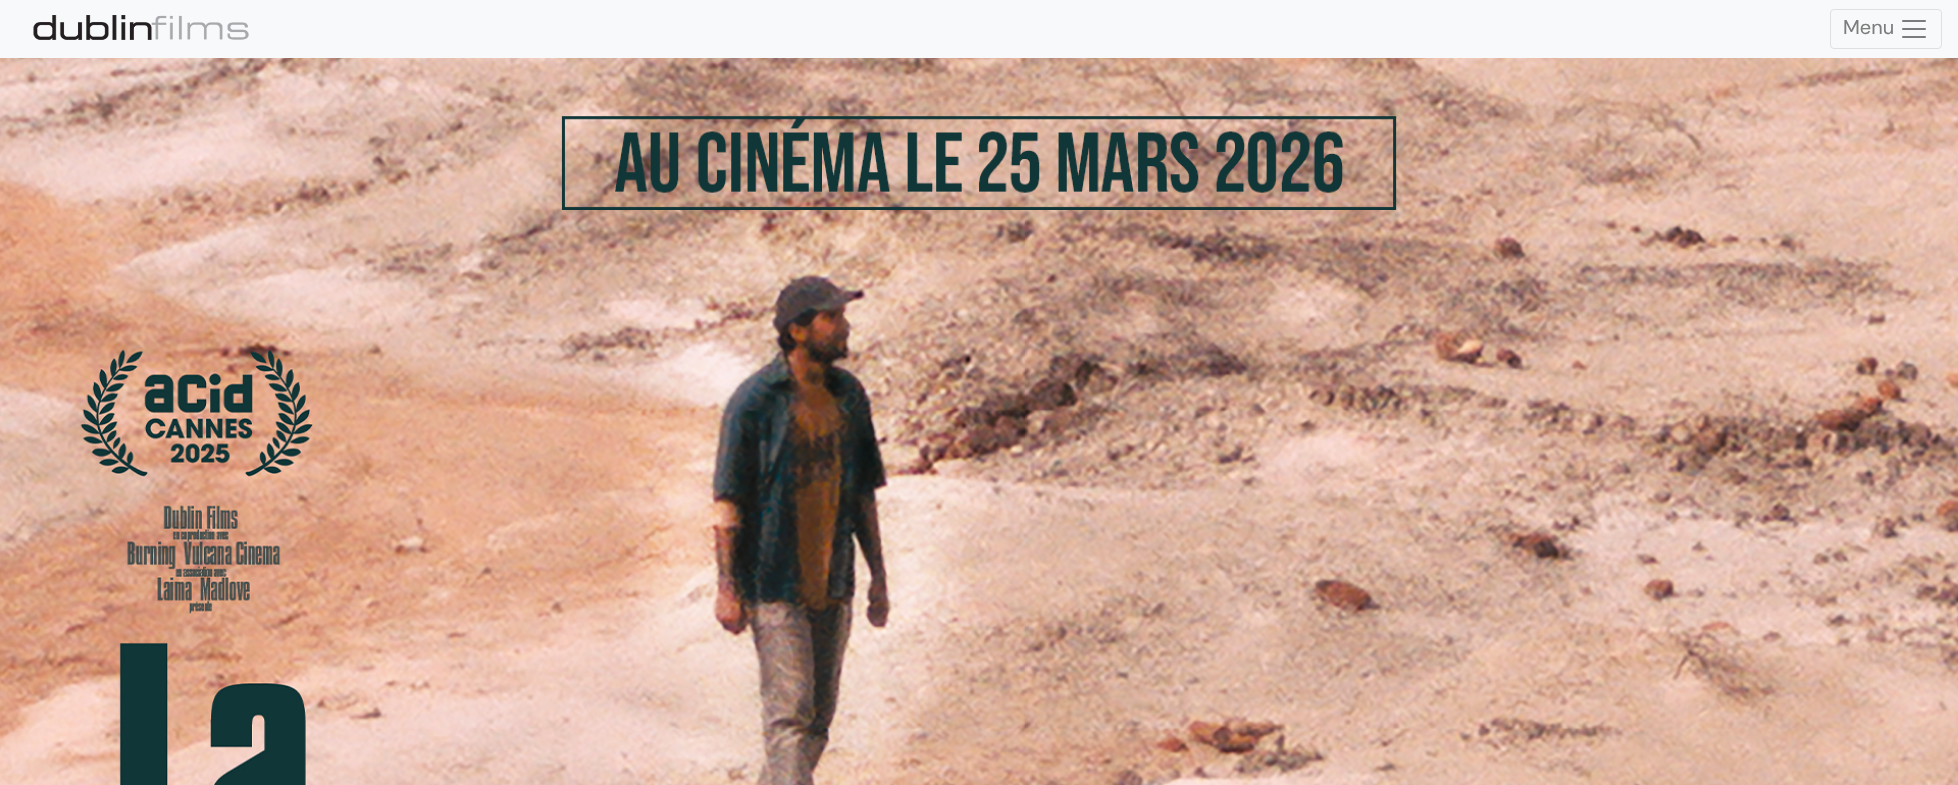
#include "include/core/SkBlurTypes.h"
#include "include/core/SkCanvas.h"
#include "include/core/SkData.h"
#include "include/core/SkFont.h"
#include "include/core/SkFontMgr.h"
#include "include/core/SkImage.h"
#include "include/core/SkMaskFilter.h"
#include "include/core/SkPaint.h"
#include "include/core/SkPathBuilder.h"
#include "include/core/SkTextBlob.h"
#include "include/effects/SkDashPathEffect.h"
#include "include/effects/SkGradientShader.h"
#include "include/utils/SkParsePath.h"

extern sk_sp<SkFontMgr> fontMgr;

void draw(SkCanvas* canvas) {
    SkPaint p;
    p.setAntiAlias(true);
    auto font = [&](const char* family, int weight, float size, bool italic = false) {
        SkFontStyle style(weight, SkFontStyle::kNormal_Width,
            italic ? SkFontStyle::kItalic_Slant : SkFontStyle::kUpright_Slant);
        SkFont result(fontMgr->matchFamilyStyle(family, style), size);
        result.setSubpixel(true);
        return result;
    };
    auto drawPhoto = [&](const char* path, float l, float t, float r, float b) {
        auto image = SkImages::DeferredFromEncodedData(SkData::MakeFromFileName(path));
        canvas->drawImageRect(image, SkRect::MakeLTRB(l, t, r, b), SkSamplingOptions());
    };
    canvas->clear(0xFFFFFFFF);
    p.setColor(0xFFF8F9FA);
    canvas->drawRect(SkRect::MakeLTRB(0, 0, 1958, 58), p);
    drawPhoto("media/1.png", 33, 15, 249, 40);
    p.setStyle(SkPaint::kStroke_Style);
    p.setStrokeWidth(1);
    p.setColor(0xFFDFE0E1);
    canvas->drawRoundRect(SkRect::MakeLTRB(1830.5f, 9.5f, 1941.5f, 48.5f), 3.5f, 3.5f, p);
    auto font1 = font("DM Sans", 400, 20);
    p.setStyle(SkPaint::kFill_Style);
    p.setColor(0xFF7C7D7D);
    canvas->drawString("Menu", 1843, 34, font1, p);
    drawPhoto("media/2.png", 1902, 20, 1926, 38);
    drawPhoto("media/3.png", 0, 58, 1958, 785);
}
